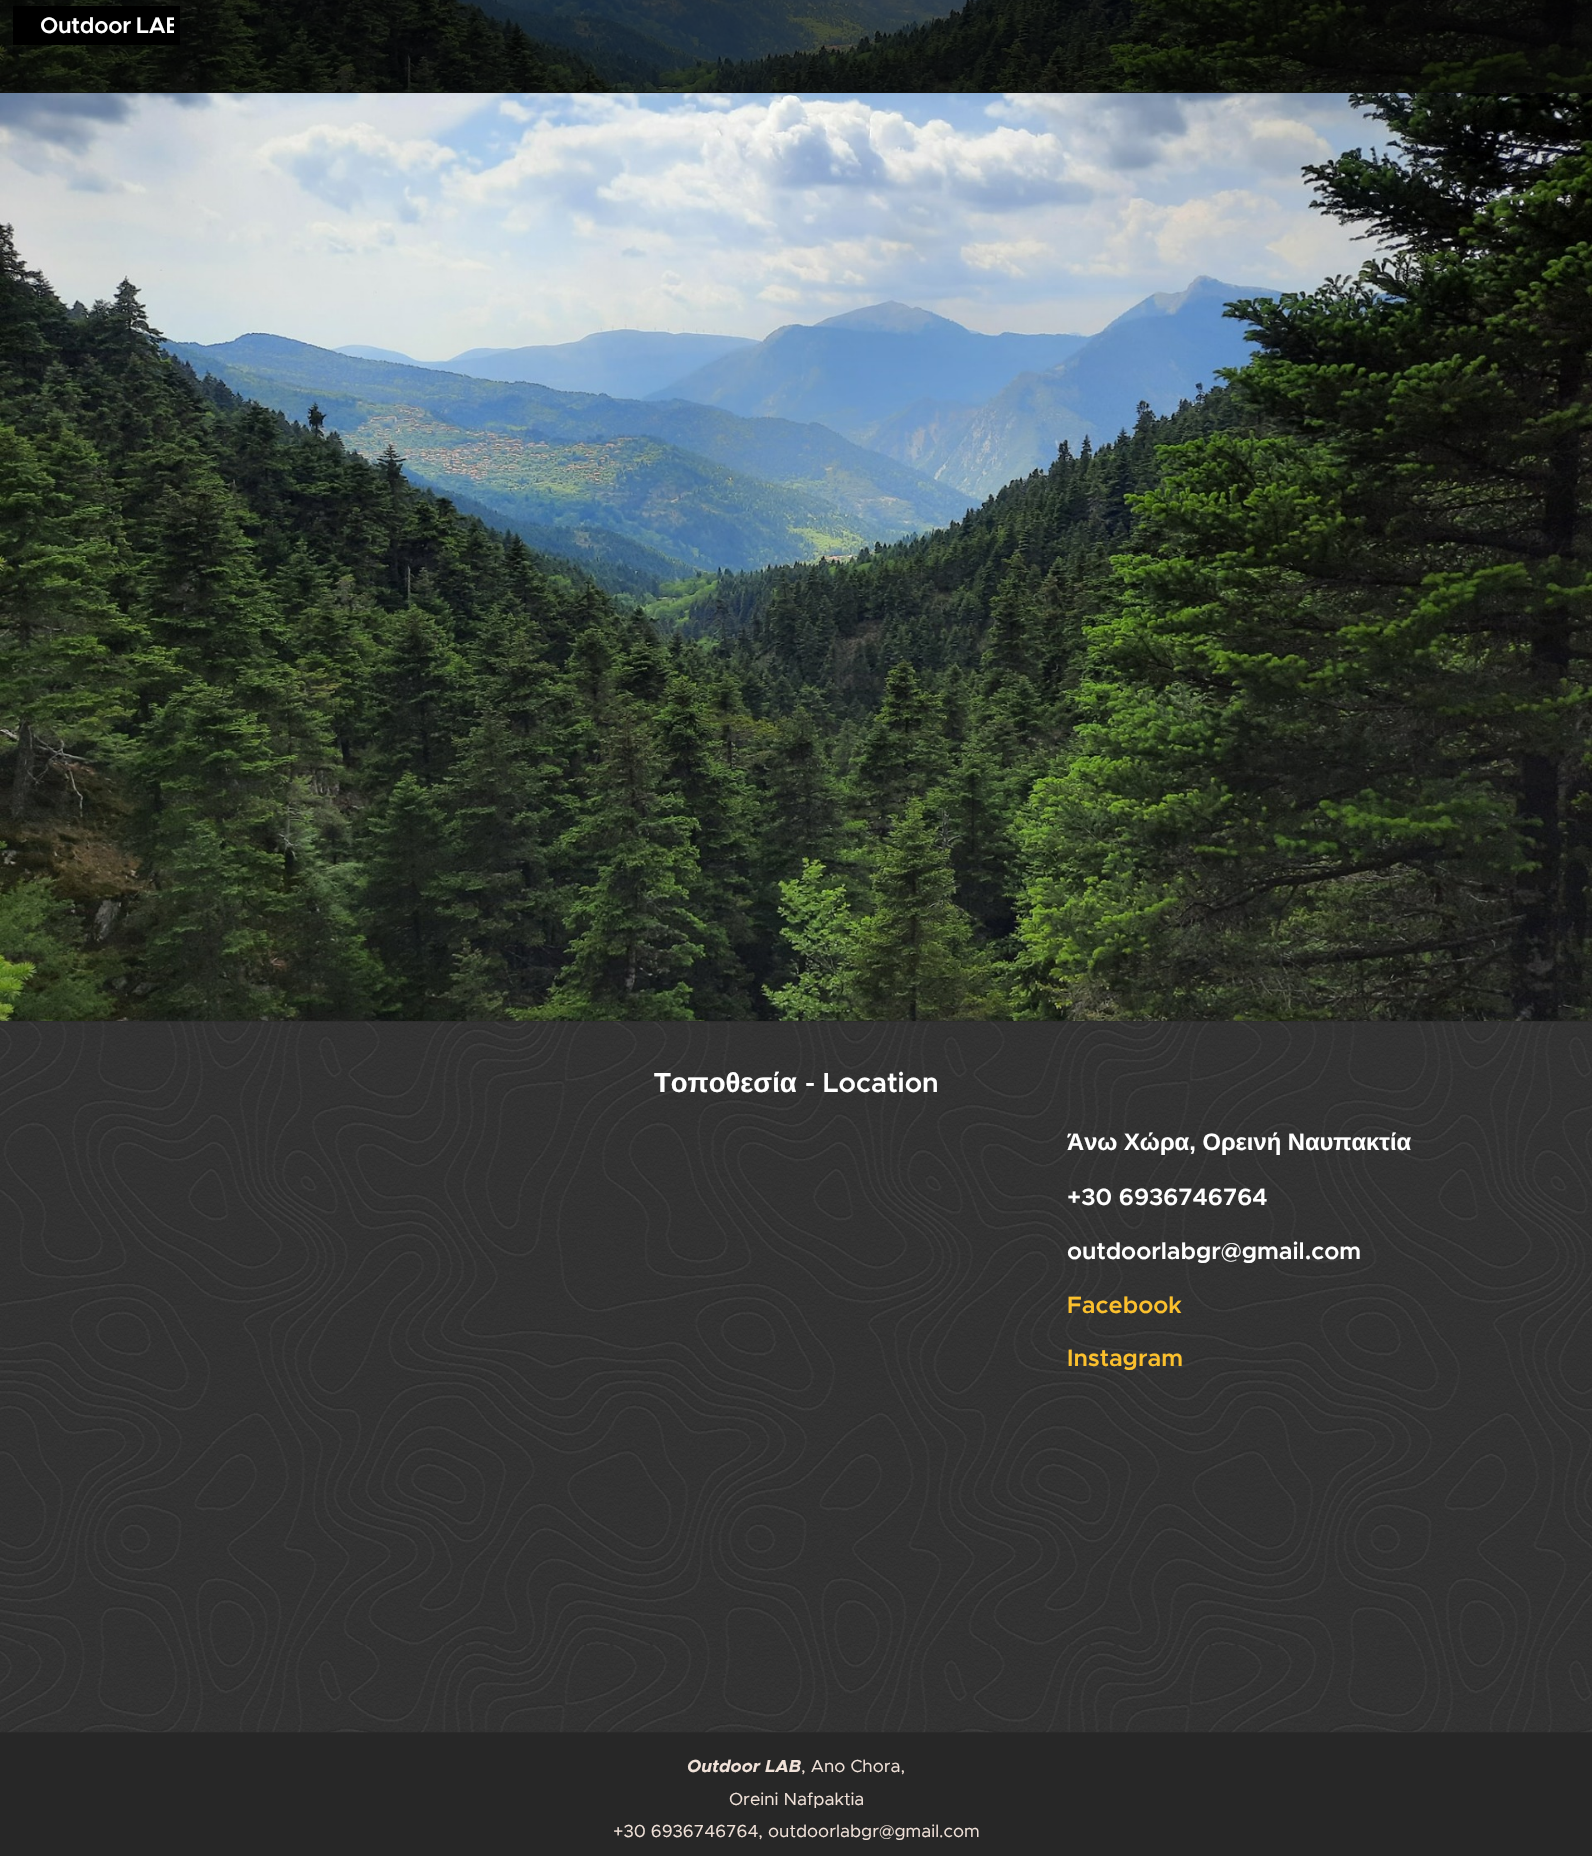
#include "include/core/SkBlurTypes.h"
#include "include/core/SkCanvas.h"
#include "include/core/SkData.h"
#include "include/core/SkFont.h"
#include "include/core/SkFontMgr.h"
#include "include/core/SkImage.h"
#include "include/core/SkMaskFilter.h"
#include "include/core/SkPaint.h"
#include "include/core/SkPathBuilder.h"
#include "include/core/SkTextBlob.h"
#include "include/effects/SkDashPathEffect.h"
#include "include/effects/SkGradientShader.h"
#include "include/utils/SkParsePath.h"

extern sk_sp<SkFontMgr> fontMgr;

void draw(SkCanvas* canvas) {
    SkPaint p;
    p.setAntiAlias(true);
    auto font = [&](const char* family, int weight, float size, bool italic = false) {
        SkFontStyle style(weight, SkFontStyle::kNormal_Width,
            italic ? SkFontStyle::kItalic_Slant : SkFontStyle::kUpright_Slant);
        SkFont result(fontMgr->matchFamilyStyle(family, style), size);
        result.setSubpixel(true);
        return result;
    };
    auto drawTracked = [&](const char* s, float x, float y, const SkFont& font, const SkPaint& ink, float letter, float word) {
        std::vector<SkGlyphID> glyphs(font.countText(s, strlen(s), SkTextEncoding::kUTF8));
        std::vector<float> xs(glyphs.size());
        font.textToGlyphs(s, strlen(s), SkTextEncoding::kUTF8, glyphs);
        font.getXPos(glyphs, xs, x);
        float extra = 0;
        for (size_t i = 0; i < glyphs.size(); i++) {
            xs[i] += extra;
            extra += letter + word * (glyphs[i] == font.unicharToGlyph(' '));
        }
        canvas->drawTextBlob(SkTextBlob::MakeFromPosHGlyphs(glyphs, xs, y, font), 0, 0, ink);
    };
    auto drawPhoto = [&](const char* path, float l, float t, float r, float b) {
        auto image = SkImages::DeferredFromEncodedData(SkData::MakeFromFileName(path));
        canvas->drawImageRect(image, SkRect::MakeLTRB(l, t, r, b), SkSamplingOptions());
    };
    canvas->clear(0xFF272727);
    drawPhoto("media/1.png", 0, 0, 1592, 93);
    p.setColor(0x99000000);
    canvas->drawRect(SkRect::MakeLTRB(0, 0, 1592, 93), p);
    p.setColor(0xFF000000);
    canvas->drawRect(SkRect::MakeLTRB(13, 6, 180, 45), p);
    canvas->save();
    canvas->clipRect(SkRect::MakeLTRB(35, 9, 174, 43));
    auto font1 = font("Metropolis", 600, 22.5f);
    p.setColor(0xFFFFFFFF);
    drawTracked("Outdoor LAB", 40, 33, font1, p, -0.25f, -1);
    canvas->restore();
    drawPhoto("media/2.png", 0, 93, 1592, 1021);
    drawPhoto("media/3.png", 0, 1021, 1592, 1733);
    auto font2 = font("Liberation Sans", 700, 27.5f);
    canvas->drawString("Τοποθεσία", 654, 1092, font2, p);
    auto font3 = font("Metropolis", 600, 27.5f);
    canvas->drawString("- Location", 805, 1092, font3, p);
    auto font4 = font("Liberation Sans", 700, 23.75f);
    canvas->drawString("Άνω Χώρα, Ορεινή Ναυπακτία", 1067, 1150, font4, p);
    auto font5 = font("Metropolis", 600, 23.75f);
    canvas->drawString("+30 6936746764", 1067, 1205, font5, p);
    canvas->drawString("outdoorlabgr@gmail.com", 1067, 1259, font5, p);
    p.setColor(0xFFFBC02D);
    canvas->drawString("Facebook", 1067, 1313, font5, p);
    canvas->drawString("Instagram", 1067, 1366, font5, p);
    auto font6 = font("Metropolis", 700, 17.5f, true);
    p.setColor(0xFFF1E2D9);
    canvas->drawString("Outdoor LAB", 687, 1772, font6, p);
    auto font7 = font("Metropolis", 400, 17.5f);
    {
        const struct { const char* s; float x, y; } items[] = {
            {", Ano Chora,", 801, 1772},
            {"Oreini Nafpaktia", 729, 1805},
            {"+30 6936746764, outdoorlabgr@gmail.com", 613, 1837},
        };
        for (auto [s, x, y] : items) {
            canvas->drawString(s, x, y, font7, p);
        }
    }
}
